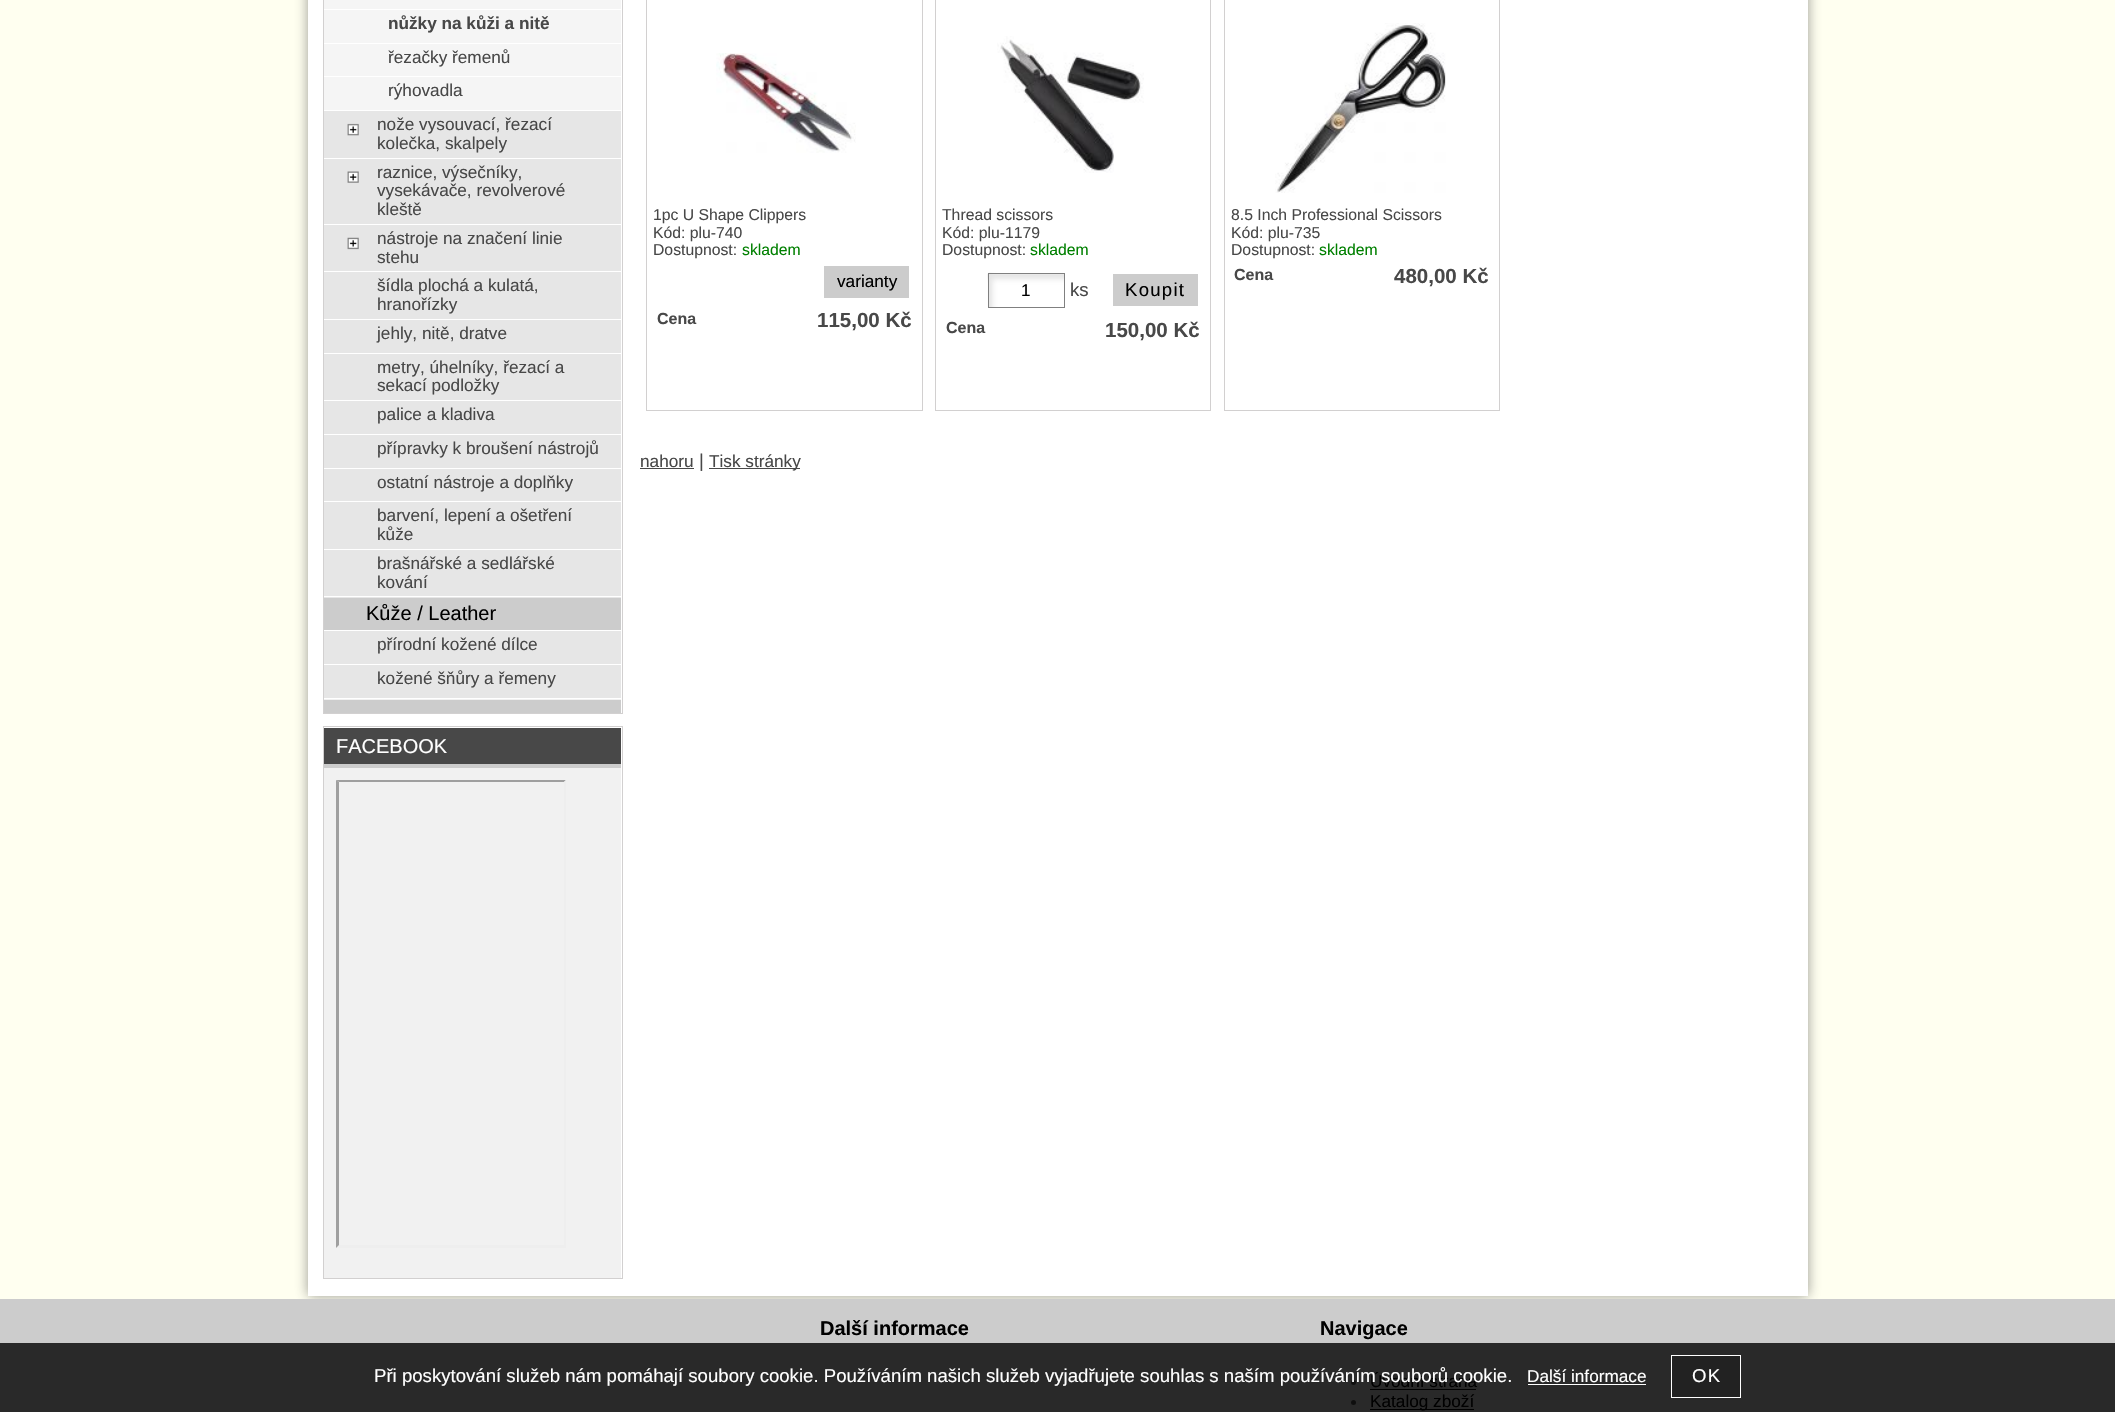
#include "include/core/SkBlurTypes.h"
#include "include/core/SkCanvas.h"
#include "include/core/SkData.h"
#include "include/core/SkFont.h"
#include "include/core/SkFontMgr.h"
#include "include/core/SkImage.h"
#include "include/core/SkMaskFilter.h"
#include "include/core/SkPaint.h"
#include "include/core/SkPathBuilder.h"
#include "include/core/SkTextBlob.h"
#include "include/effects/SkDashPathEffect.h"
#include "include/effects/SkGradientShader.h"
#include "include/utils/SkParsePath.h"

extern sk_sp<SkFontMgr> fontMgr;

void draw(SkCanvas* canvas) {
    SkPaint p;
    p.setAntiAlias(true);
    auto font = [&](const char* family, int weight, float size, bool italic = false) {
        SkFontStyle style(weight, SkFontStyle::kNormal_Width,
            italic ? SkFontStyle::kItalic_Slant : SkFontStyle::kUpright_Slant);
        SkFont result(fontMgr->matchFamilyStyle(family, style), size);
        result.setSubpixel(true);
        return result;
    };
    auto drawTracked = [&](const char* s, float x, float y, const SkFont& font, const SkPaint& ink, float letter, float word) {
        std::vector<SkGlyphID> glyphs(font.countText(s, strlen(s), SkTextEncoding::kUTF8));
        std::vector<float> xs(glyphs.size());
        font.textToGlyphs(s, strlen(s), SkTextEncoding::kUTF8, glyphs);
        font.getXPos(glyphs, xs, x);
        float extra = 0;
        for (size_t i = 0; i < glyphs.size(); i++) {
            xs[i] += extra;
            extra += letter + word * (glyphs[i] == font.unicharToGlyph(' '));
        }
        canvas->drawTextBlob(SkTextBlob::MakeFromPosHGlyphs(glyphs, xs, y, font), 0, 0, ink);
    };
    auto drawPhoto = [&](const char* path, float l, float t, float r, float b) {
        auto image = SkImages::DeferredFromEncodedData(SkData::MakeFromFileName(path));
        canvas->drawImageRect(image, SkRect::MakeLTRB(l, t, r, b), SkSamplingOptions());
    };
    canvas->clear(0xFFFFFFF0);
    p.setColor(0x80323232);
    p.setMaskFilter(SkMaskFilter::MakeBlur(kNormal_SkBlurStyle, 6));
    canvas->drawRect(SkRect::MakeLTRB(308, -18, 1808, 1296), p);
    p.setMaskFilter(nullptr);
    p.setColor(0xFFFFFFFF);
    canvas->drawRect(SkRect::MakeLTRB(308, 0, 1808, 1296), p);
    p.setStyle(SkPaint::kStroke_Style);
    p.setStrokeWidth(1);
    p.setColor(0xFFD2D0D0);
    canvas->drawRect(SkRect::MakeLTRB(323.5f, -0.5f, 622.5f, 713.5f), p);
    p.setStyle(SkPaint::kFill_Style);
    {
        const struct { float l, t, r, b; SkColor color; } items[] = {
            {324, 699, 621, 700, 0xFFF1F1F1},
            {324, 0, 621, 9, 0xFFF5F5F5},
            {324, 10, 621, 43, 0xFFF5F5F5},
        };
        for (auto [l, t, r, b, color] : items) {
            p.setColor(color);
            canvas->drawRect(SkRect::MakeLTRB(l, t, r, b), p);
        }
    }
    auto font1 = font("Liberation Sans", 700, 17.2f);
    p.setColor(0xFF484848);
    canvas->drawString("nůžky na kůži a nitě", 388, 29, font1, p);
    p.setColor(0xFFF5F5F5);
    canvas->drawRect(SkRect::MakeLTRB(324, 44, 621, 110), p);
    p.setColor(0xFFFFFFFF);
    canvas->drawRect(SkRect::MakeLTRB(324, 76, 621, 77), p);
    auto font2 = font("Liberation Sans", 400, 17.2f);
    p.setColor(0xFF484848);
    canvas->drawString("řezačky řemenů", 388, 63, font2, p);
    canvas->drawString("rýhovadla", 388, 96, font2, p);
    p.setColor(0xFFE6E6E6);
    canvas->drawRect(SkRect::MakeLTRB(324, 111, 621, 158), p);
    drawPhoto("media/1.png", 347, 123, 359, 136);
    p.setColor(0xFF484848);
    canvas->drawString("nože vysouvací, řezací", 377, 130, font2, p);
    canvas->drawString("kolečka, skalpely", 377, 149, font2, p);
    p.setColor(0xFFE6E6E6);
    canvas->drawRect(SkRect::MakeLTRB(324, 159, 621, 224), p);
    drawPhoto("media/2.png", 347, 171, 359, 183);
    p.setColor(0xFF484848);
    {
        const struct { const char* s; float x, y; } items[] = {
            {"raznice, výsečníky,", 377, 178},
            {"vysekávače, revolverové", 377, 196},
            {"kleště", 377, 215},
        };
        for (auto [s, x, y] : items) {
            canvas->drawString(s, x, y, font2, p);
        }
    }
    p.setColor(0xFFE6E6E6);
    canvas->drawRect(SkRect::MakeLTRB(324, 225, 621, 319), p);
    p.setColor(0xFFFFFFFF);
    canvas->drawRect(SkRect::MakeLTRB(324, 271, 621, 272), p);
    drawPhoto("media/3.png", 347, 237, 359, 250);
    p.setColor(0xFF484848);
    {
        const struct { const char* s; float x, y; } items[] = {
            {"nástroje na značení linie", 377, 244},
            {"stehu", 377, 263},
            {"šídla plochá a kulatá,", 377, 291},
            {"hranořízky", 377, 310},
        };
        for (auto [s, x, y] : items) {
            canvas->drawString(s, x, y, font2, p);
        }
    }
    p.setColor(0xFFE6E6E6);
    canvas->drawRect(SkRect::MakeLTRB(324, 320, 621, 353), p);
    p.setColor(0xFF484848);
    canvas->drawString("jehly, nitě, dratve", 377, 339, font2, p);
    p.setColor(0xFFE6E6E6);
    canvas->drawRect(SkRect::MakeLTRB(324, 354, 621, 400), p);
    p.setColor(0xFF484848);
    canvas->drawString("metry, úhelníky, řezací a", 377, 373, font2, p);
    canvas->drawString("sekací podložky", 377, 391, font2, p);
    p.setColor(0xFFE6E6E6);
    canvas->drawRect(SkRect::MakeLTRB(324, 401, 621, 434), p);
    p.setColor(0xFF484848);
    canvas->drawString("palice a kladiva", 377, 420, font2, p);
    p.setColor(0xFFE6E6E6);
    canvas->drawRect(SkRect::MakeLTRB(324, 435, 621, 468), p);
    p.setColor(0xFF484848);
    canvas->drawString("přípravky k broušení nástrojů", 377, 454, font2, p);
    p.setColor(0xFFE6E6E6);
    canvas->drawRect(SkRect::MakeLTRB(324, 469, 621, 549), p);
    p.setColor(0xFFFFFFFF);
    canvas->drawRect(SkRect::MakeLTRB(324, 501, 621, 502), p);
    p.setColor(0xFF484848);
    {
        const struct { const char* s; float x, y; } items[] = {
            {"ostatní nástroje a doplňky", 377, 488},
            {"barvení, lepení a ošetření", 377, 521},
            {"kůže", 377, 540},
        };
        for (auto [s, x, y] : items) {
            canvas->drawString(s, x, y, font2, p);
        }
    }
    p.setColor(0xFFE6E6E6);
    canvas->drawRect(SkRect::MakeLTRB(324, 550, 621, 598), p);
    p.setColor(0xFFFFFFFF);
    canvas->drawRect(SkRect::MakeLTRB(324, 596, 621, 597), p);
    p.setColor(0xFF484848);
    canvas->drawString("brašnářské a sedlářské", 377, 569, font2, p);
    canvas->drawString("kování", 377, 588, font2, p);
    p.setColor(0xFFCCCCCC);
    canvas->drawRect(SkRect::MakeLTRB(324, 598, 621, 630), p);
    auto font3 = font("Liberation Sans", 400, 20);
    p.setColor(0xFF000000);
    canvas->drawString("Kůže / Leather", 366, 620, font3, p);
    p.setColor(0xFFE6E6E6);
    canvas->drawRect(SkRect::MakeLTRB(324, 631, 621, 664), p);
    p.setColor(0xFF484848);
    canvas->drawString("přírodní kožené dílce", 377, 650, font2, p);
    p.setColor(0xFFE6E6E6);
    canvas->drawRect(SkRect::MakeLTRB(324, 665, 621, 698), p);
    p.setColor(0xFF484848);
    canvas->drawString("kožené šňůry a řemeny", 377, 684, font2, p);
    p.setColor(0xFFCCCCCC);
    canvas->drawRect(SkRect::MakeLTRB(324, 700, 621, 713), p);
    p.setStyle(SkPaint::kStroke_Style);
    p.setColor(0xFFD2D0D0);
    canvas->drawRect(SkRect::MakeLTRB(323.5f, 726.5f, 622.5f, 1278.5f), p);
    p.setStyle(SkPaint::kFill_Style);
    p.setColor(0xFF484848);
    canvas->drawRect(SkRect::MakeLTRB(324, 728, 621, 764), p);
    p.setColor(0xFFCCCCCC);
    canvas->drawRect(SkRect::MakeLTRB(324, 764, 621, 768), p);
    p.setColor(0xFFFFFFFF);
    canvas->drawString("FACEBOOK", 336, 753, font3, p);
    p.setColor(0xFFF1F1F1);
    canvas->drawRect(SkRect::MakeLTRB(324, 768, 621, 1278), p);
    p.setColor(0xFF9F9F9F);
    canvas->drawPath(SkPathBuilder().moveTo(336, 780).lineTo(566, 780).lineTo(564, 782).lineTo(339, 782).close().detach(), p);
    p.setColor(0xFFEEEEEE);
    canvas->drawPath(SkPathBuilder().moveTo(566, 780).lineTo(566, 1248).lineTo(564, 1245).lineTo(564, 782).close().detach(), p);
    canvas->drawPath(SkPathBuilder().moveTo(566, 1248).lineTo(336, 1248).lineTo(339, 1245).lineTo(564, 1245).close().detach(), p);
    p.setColor(0xFF9F9F9F);
    canvas->drawPath(SkPathBuilder().moveTo(336, 1248).lineTo(336, 780).lineTo(339, 782).lineTo(339, 1245).close().detach(), p);
    p.setStyle(SkPaint::kStroke_Style);
    p.setColor(0xFFD2D0D0);
    canvas->drawRect(SkRect::MakeLTRB(646.5f, -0.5f, 922.5f, 410.5f), p);
    drawPhoto("media/4.png", 716, 53, 856, 153);
    auto font4 = font("Liberation Sans", 400, 15.75f);
    p.setStyle(SkPaint::kFill_Style);
    p.setColor(0xFF484848);
    {
        const struct { const char* s; float x, y; } items[] = {
            {"1pc U Shape Clippers", 653, 220},
            {"Kód: plu-740", 653, 238},
            {"Dostupnost:", 653, 255},
        };
        for (auto [s, x, y] : items) {
            canvas->drawString(s, x, y, font4, p);
        }
    }
    p.setColor(0xFF008000);
    canvas->drawString("skladem", 742, 255, font4, p);
    p.setColor(0xFFCCCCCC);
    canvas->drawRect(SkRect::MakeLTRB(824, 266, 909, 298), p);
    p.setColor(0xFF000000);
    canvas->drawString("varianty", 837, 287, font2, p);
    auto font5 = font("Liberation Sans", 700, 16);
    p.setColor(0xFF484848);
    canvas->drawString("Cena", 657, 324, font5, p);
    auto font6 = font("Liberation Sans", 700, 20.5f);
    canvas->drawString("115,00 Kč", 817, 327, font6, p);
    p.setStyle(SkPaint::kStroke_Style);
    p.setColor(0xFFD2D0D0);
    canvas->drawRect(SkRect::MakeLTRB(935.5f, -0.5f, 1210.5f, 410.5f), p);
    drawPhoto("media/5.png", 997, 36, 1144, 173);
    p.setStyle(SkPaint::kFill_Style);
    p.setColor(0xFF484848);
    {
        const struct { const char* s; float x, y; } items[] = {
            {"Thread scissors", 942, 220},
            {"Kód: plu-1179", 942, 238},
            {"Dostupnost:", 942, 255},
        };
        for (auto [s, x, y] : items) {
            canvas->drawString(s, x, y, font4, p);
        }
    }
    p.setColor(0xFF008000);
    canvas->drawString("skladem", 1030, 255, font4, p);
    drawPhoto("media/6.png", 987, 272, 1065, 308);
    p.setStyle(SkPaint::kStroke_Style);
    p.setColor(0xFF808080);
    canvas->drawRect(SkRect::MakeLTRB(988.5f, 273.5f, 1064.5f, 307.5f), p);
    auto font7 = font("Liberation Sans", 400, 17);
    p.setStyle(SkPaint::kFill_Style);
    p.setColor(0xFF000000);
    drawTracked("1", 1021, 296, font7, p, 1.25f, 0);
    auto font8 = font("Liberation Sans", 400, 18.6f);
    p.setColor(0xFF484848);
    canvas->drawString("ks", 1070, 296, font8, p);
    p.setColor(0xFFCCCCCC);
    canvas->drawRect(SkRect::MakeLTRB(1113, 274, 1198, 306), p);
    p.setColor(0xFF000000);
    drawTracked("Koupit", 1125, 296, font8, p, 1.25f, 0);
    p.setColor(0xFF484848);
    canvas->drawString("Cena", 946, 333, font5, p);
    canvas->drawString("150,00 Kč", 1105, 337, font6, p);
    p.setStyle(SkPaint::kStroke_Style);
    p.setColor(0xFFD2D0D0);
    canvas->drawRect(SkRect::MakeLTRB(1224.5f, -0.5f, 1499.5f, 410.5f), p);
    drawPhoto("media/7.png", 1275, 23, 1446, 193);
    p.setStyle(SkPaint::kFill_Style);
    p.setColor(0xFF484848);
    {
        const struct { const char* s; float x, y; } items[] = {
            {"8.5 Inch Professional Scissors", 1231, 220},
            {"Kód: plu-735", 1231, 238},
            {"Dostupnost:", 1231, 255},
        };
        for (auto [s, x, y] : items) {
            canvas->drawString(s, x, y, font4, p);
        }
    }
    p.setColor(0xFF008000);
    canvas->drawString("skladem", 1319, 255, font4, p);
    p.setColor(0xFF484848);
    canvas->drawString("Cena", 1234, 280, font5, p);
    canvas->drawString("480,00 Kč", 1394, 283, font6, p);
    canvas->drawString("nahoru", 640, 467, font2, p);
    canvas->drawRect(SkRect::MakeLTRB(640, 468, 694, 469), p);
    canvas->drawString("|", 699, 467, font8, p);
    canvas->drawRect(SkRect::MakeLTRB(709, 468, 800, 469), p);
    canvas->drawString("Tisk stránky", 709, 467, font2, p);
    p.setColor(0xFFCCCCCC);
    canvas->drawRect(SkRect::MakeLTRB(0, 1299, 2115, 1343), p);
    p.setColor(0xFF292929);
    canvas->drawRect(SkRect::MakeLTRB(0, 1343, 2115, 1412), p);
    auto font9 = font("Liberation Sans", 700, 20);
    p.setColor(0xFF000000);
    canvas->drawString("Další informace", 820, 1335, font9, p);
    canvas->drawString("Navigace", 1320, 1335, font9, p);
    p.setColor(0xFF0E0E0E);
    canvas->drawCircle(1353.5f, 1382.5f, 2.5f, p);
    p.setColor(0xFF000000);
    canvas->drawString("Úvodní strana", 1370, 1387, font2, p);
    canvas->drawRect(SkRect::MakeLTRB(1370, 1389, 1476, 1390), p);
    p.setColor(0xFF0E0E0E);
    canvas->drawCircle(1353.5f, 1402.5f, 2.5f, p);
    p.setColor(0xFF000000);
    canvas->drawRect(SkRect::MakeLTRB(1370, 1409, 1474, 1410), p);
    canvas->drawString("Katalog zboží", 1370, 1407, font2, p);
    p.setColor(0xFFFFFFFF);
    canvas->drawString("Při poskytování služeb nám pomáhají soubory cookie. Používáním našich služeb vyjadřujete souhlas s naším používáním souborů cookie.", 374, 1382, font8, p);
    canvas->drawString("Další informace", 1527, 1382, font2, p);
    canvas->drawRect(SkRect::MakeLTRB(1528, 1384, 1646, 1385), p);
    p.setColor(0xFF222222);
    canvas->drawRect(SkRect::MakeLTRB(1671.5f, 1355.5f, 1740.5f, 1397.5f), p);
    p.setStyle(SkPaint::kStroke_Style);
    p.setColor(0xFFFFFFFF);
    canvas->drawRect(SkRect::MakeLTRB(1671.5f, 1355.5f, 1740.5f, 1397.5f), p);
    p.setStyle(SkPaint::kFill_Style);
    drawTracked("OK", 1692, 1382, font8, p, 1.25f, 0);
}
